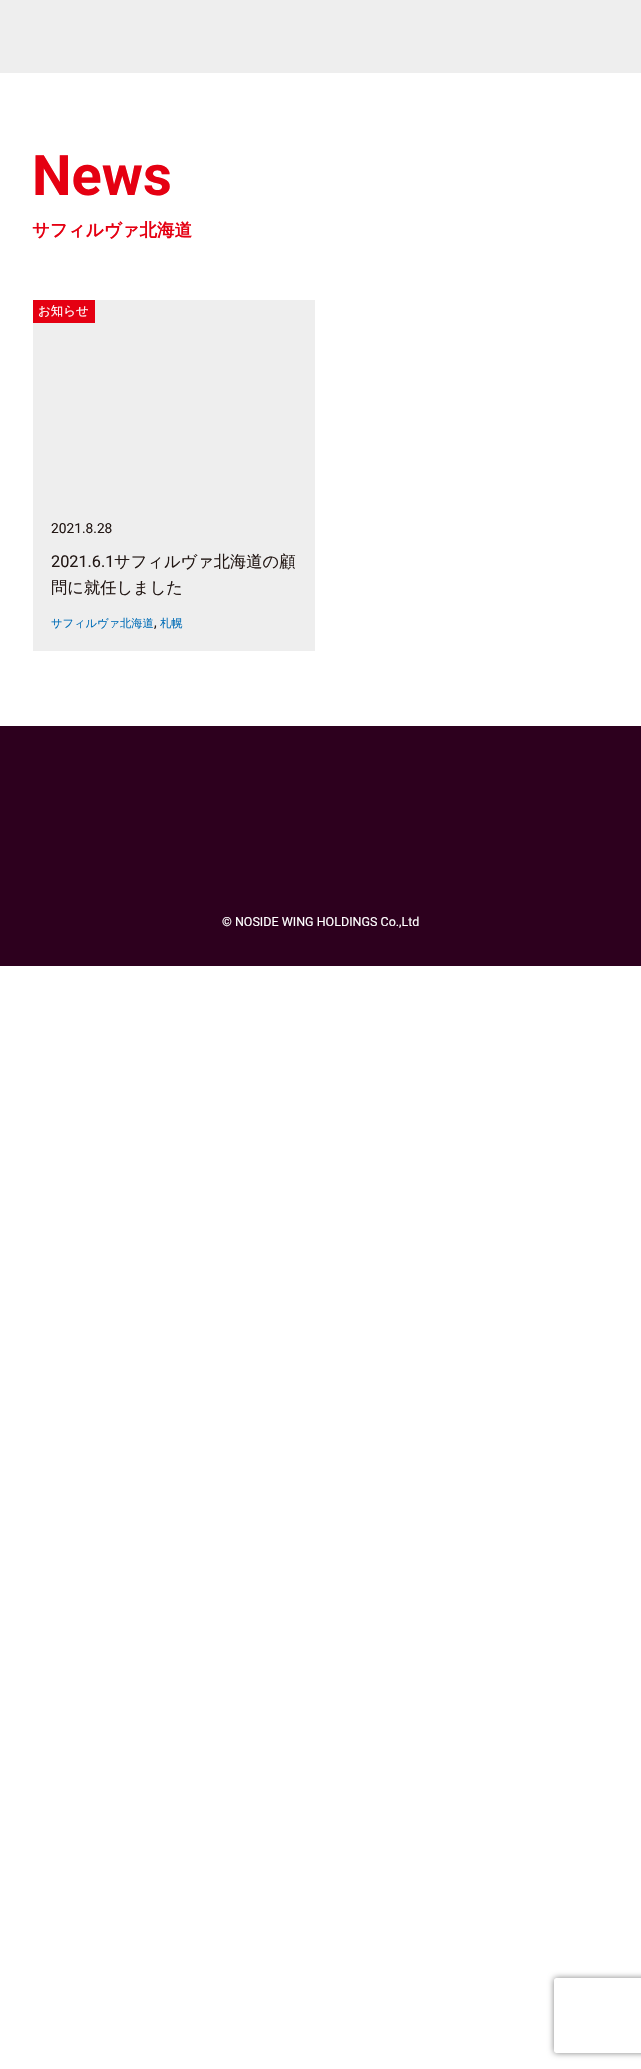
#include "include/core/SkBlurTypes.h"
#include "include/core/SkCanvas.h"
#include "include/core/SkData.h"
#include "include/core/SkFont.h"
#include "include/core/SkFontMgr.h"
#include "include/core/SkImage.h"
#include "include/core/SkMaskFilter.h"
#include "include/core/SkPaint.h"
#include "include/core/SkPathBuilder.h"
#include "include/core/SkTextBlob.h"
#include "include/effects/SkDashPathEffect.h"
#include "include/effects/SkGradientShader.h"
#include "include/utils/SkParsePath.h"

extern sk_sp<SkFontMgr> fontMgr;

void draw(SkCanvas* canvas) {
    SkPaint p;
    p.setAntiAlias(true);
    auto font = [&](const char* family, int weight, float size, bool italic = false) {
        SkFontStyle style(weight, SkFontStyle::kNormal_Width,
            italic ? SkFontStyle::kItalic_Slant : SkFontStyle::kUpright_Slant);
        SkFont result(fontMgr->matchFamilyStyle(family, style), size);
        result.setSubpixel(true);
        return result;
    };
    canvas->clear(0xFFFFFFFF);
    p.setColor(0xFFEEEEEE);
    canvas->drawRect(SkRect::MakeLTRB(0, 0, 641, 73), p);
    auto font1 = font("Roboto", 700, 56);
    p.setColor(0xFFE50012);
    canvas->drawString("News", 32, 195, font1, p);
    auto font2 = font("WenQuanYi Zen Hei", 700, 17.5f);
    canvas->drawString("サフィルヴァ北海道", 32, 236, font2, p);
    p.setColor(0xFFEEEEEE);
    canvas->drawRect(SkRect::MakeLTRB(33, 300, 315, 651), p);
    p.setColor(0xFFE50012);
    canvas->drawRect(SkRect::MakeLTRB(33, 300, 95, 323), p);
    auto font3 = font("WenQuanYi Zen Hei", 500, 12.5f);
    p.setColor(0xFFFFFFFF);
    canvas->drawString("お知らせ", 38, 315, font3, p);
    auto font4 = font("Roboto", 400, 13.75f);
    p.setColor(0xFF231815);
    canvas->drawString("2021.8.28", 51, 533, font4, p);
    auto font5 = font("Roboto", 400, 16.25f);
    canvas->drawString("2021.6.1", 51, 567, font5, p);
    auto font6 = font("WenQuanYi Zen Hei", 500, 16.25f);
    canvas->drawString("サフィルヴァ北海道の顧", 114, 567, font6, p);
    canvas->drawString("問に就任しました", 51, 593, font6, p);
    auto font7 = font("WenQuanYi Zen Hei", 500, 11.25f);
    p.setColor(0xFF036EB8);
    canvas->drawString("サフィルヴァ北海道", 51, 627, font7, p);
    p.setColor(0xFF231815);
    canvas->drawString(",", 154, 627, font4, p);
    p.setColor(0xFF036EB8);
    canvas->drawString("札幌", 160, 627, font7, p);
    p.setColor(0xFF2D001E);
    canvas->drawRect(SkRect::MakeLTRB(0, 726, 641, 966), p);
    auto font8 = font("Roboto", 400, 12.5f);
    p.setColor(0xFFFFFFFF);
    canvas->drawString("© NOSIDE WING HOLDINGS Co.,Ltd", 222, 926, font8, p);
    canvas->save();
    canvas->clipPath(SkPathBuilder(SkPathFillType::kEvenOdd).moveTo(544, 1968).lineTo(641, 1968).lineTo(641, 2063).lineTo(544, 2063).close().moveTo(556.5f, 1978).lineTo(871.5f, 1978).cubicTo(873, 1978, 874, 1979, 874, 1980.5f).lineTo(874, 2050.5f).cubicTo(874, 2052, 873, 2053, 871.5f, 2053).lineTo(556.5f, 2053).cubicTo(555, 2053, 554, 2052, 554, 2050.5f).lineTo(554, 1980.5f).cubicTo(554, 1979, 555, 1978, 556.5f, 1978).close().detach(), true);
    p.setColor(0xFF808080);
    p.setMaskFilter(SkMaskFilter::MakeBlur(kNormal_SkBlurStyle, 3));
    canvas->drawRoundRect(SkRect::MakeLTRB(554, 1978, 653, 2053), 2.5f, 2.5f, p);
    p.setMaskFilter(nullptr);
    canvas->restore();
}
